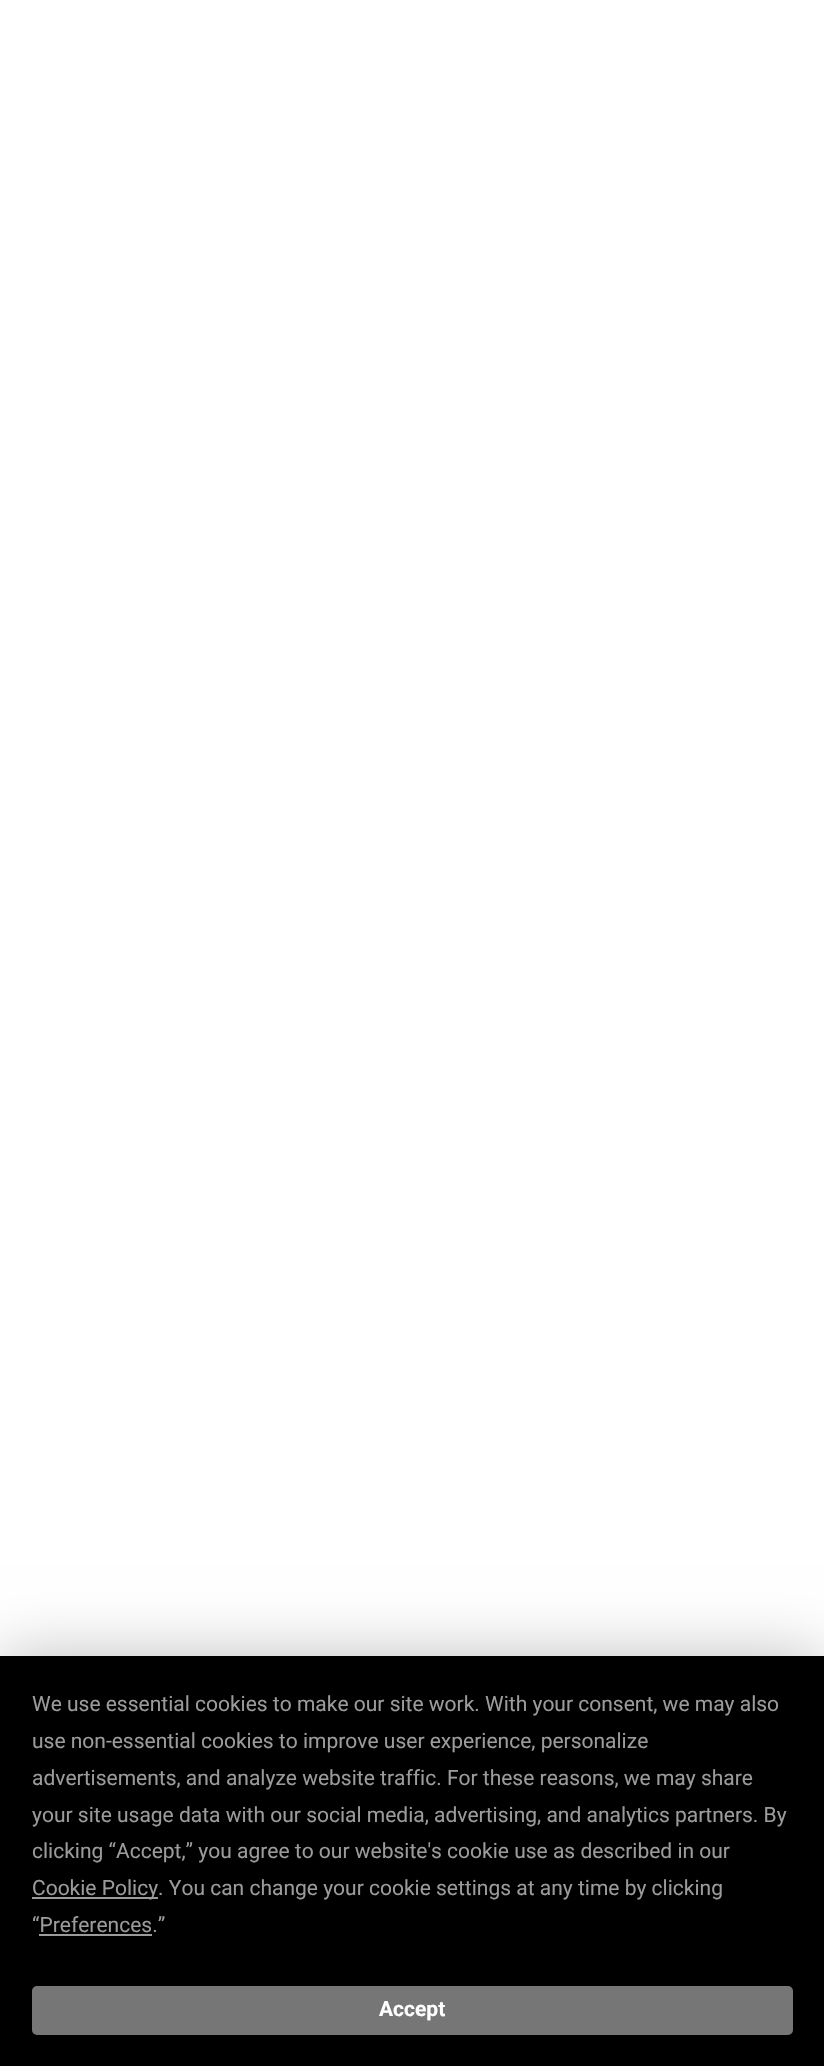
#include "include/core/SkBlurTypes.h"
#include "include/core/SkCanvas.h"
#include "include/core/SkData.h"
#include "include/core/SkFont.h"
#include "include/core/SkFontMgr.h"
#include "include/core/SkImage.h"
#include "include/core/SkMaskFilter.h"
#include "include/core/SkPaint.h"
#include "include/core/SkPathBuilder.h"
#include "include/core/SkTextBlob.h"
#include "include/effects/SkDashPathEffect.h"
#include "include/effects/SkGradientShader.h"
#include "include/utils/SkParsePath.h"

extern sk_sp<SkFontMgr> fontMgr;

void draw(SkCanvas* canvas) {
    SkPaint p;
    p.setAntiAlias(true);
    auto font = [&](const char* family, int weight, float size, bool italic = false) {
        SkFontStyle style(weight, SkFontStyle::kNormal_Width,
            italic ? SkFontStyle::kItalic_Slant : SkFontStyle::kUpright_Slant);
        SkFont result(fontMgr->matchFamilyStyle(family, style), size);
        result.setSubpixel(true);
        return result;
    };
    canvas->clear(0xFFFFFFFF);
    p.setColor(0x40000000);
    p.setMaskFilter(SkMaskFilter::MakeBlur(kNormal_SkBlurStyle, 30.5f));
    canvas->drawRect(SkRect::MakeLTRB(0, 1656, 824, 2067), p);
    p.setMaskFilter(nullptr);
    p.setColor(0xFF000000);
    canvas->drawRect(SkRect::MakeLTRB(0, 1656, 824, 2066), p);
    auto font1 = font("Roboto", 400, 21);
    p.setColor(0xFF9B9B9B);
    {
        const struct { const char* s; float x, y; } items[] = {
            {"We use essential cookies to make our site work. With your consent, we may also", 32, 1711},
            {"use non-essential cookies to improve user experience, personalize", 32, 1748},
            {"advertisements, and analyze website traffic. For these reasons, we may share", 32, 1785},
            {"your site usage data with our social media, advertising, and analytics partners. By", 32, 1822},
            {"clicking “Accept,” you agree to our website's cookie use as described in our", 32, 1858},
        };
        for (auto [s, x, y] : items) {
            canvas->drawString(s, x, y, font1, p);
        }
    }
    canvas->drawRect(SkRect::MakeLTRB(32, 1897, 158, 1899), p);
    canvas->drawString("Cookie Policy. You can change your cookie settings at any time by clicking", 32, 1895, font1, p);
    canvas->drawString("“Preferences.”", 32, 1932, font1, p);
    canvas->drawRect(SkRect::MakeLTRB(39, 1934, 152, 1936), p);
    p.setColor(0xFF767676);
    canvas->drawRoundRect(SkRect::MakeLTRB(33, 1987, 792, 2034), 4, 4, p);
    p.setStyle(SkPaint::kStroke_Style);
    p.setStrokeWidth(2);
    canvas->drawRoundRect(SkRect::MakeLTRB(33, 1987, 792, 2034), 4, 4, p);
    auto font2 = font("Roboto", 700, 21);
    p.setStyle(SkPaint::kFill_Style);
    p.setColor(0xFFFFFFFF);
    canvas->drawString("Accept", 379, 2016, font2, p);
}
